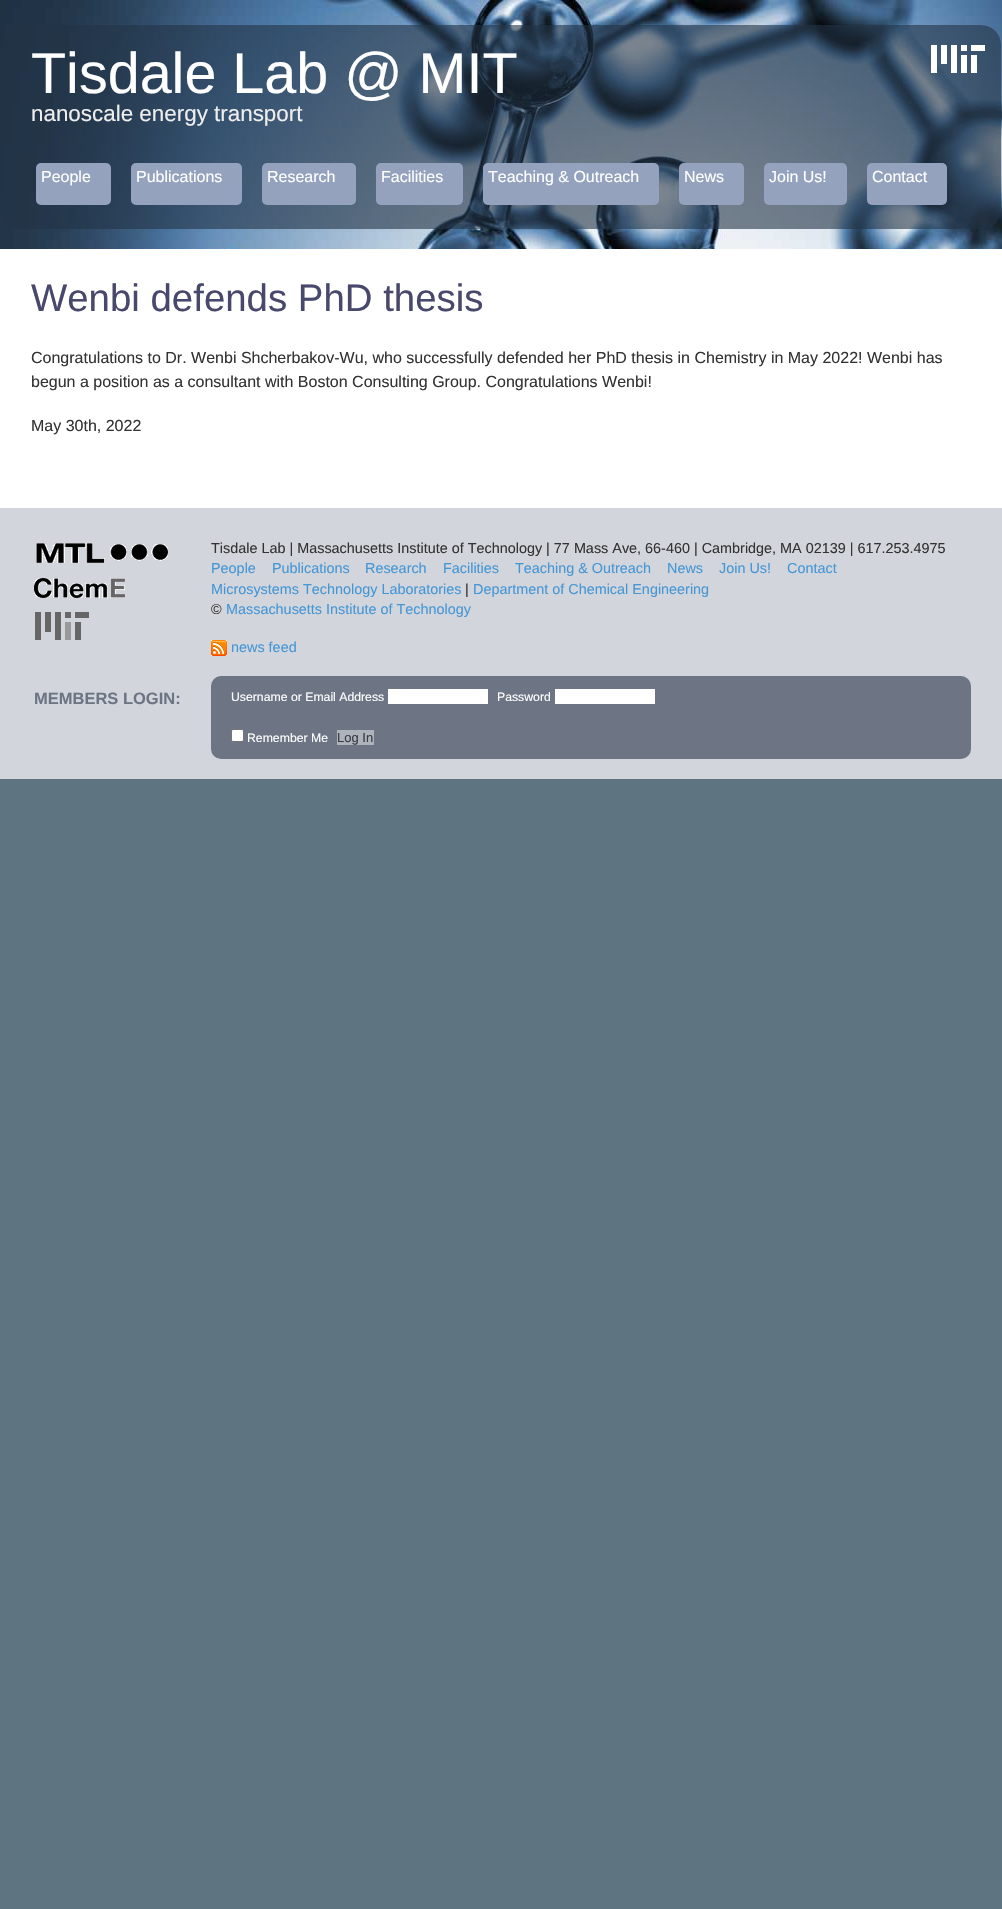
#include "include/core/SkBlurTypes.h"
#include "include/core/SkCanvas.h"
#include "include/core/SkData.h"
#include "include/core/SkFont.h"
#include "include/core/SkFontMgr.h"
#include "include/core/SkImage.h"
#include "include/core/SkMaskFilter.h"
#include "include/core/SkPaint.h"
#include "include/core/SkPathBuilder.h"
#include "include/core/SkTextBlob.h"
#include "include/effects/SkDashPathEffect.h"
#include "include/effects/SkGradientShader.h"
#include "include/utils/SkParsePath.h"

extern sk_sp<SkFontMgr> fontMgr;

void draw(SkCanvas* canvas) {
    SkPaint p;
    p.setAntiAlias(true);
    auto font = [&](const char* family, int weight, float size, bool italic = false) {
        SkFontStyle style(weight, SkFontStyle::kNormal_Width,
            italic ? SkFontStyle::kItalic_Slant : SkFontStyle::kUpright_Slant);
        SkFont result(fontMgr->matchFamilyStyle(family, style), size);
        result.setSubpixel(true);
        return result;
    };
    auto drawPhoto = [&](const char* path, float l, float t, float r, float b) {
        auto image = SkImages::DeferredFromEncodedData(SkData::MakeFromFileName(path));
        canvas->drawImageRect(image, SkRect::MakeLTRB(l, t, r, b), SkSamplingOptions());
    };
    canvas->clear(0xFF5E7481);
    drawPhoto("media/1.png", 0, 0, 1002, 249);
    p.setColor(0x99213244);
    canvas->drawRoundRect(SkRect::MakeLTRB(1, 25, 1001, 229), 20, 20, p);
    auto font1 = font("Liberation Sans", 400, 57.5f);
    p.setColor(0xFFFFFFFF);
    canvas->drawString("Tisdale Lab @ MIT", 31, 93, font1, p);
    auto font2 = font("Liberation Sans", 400, 22.4f);
    p.setColor(0xFFEEEEEE);
    canvas->drawString("nanoscale energy transport", 31, 121, font2, p);
    drawPhoto("media/2.png", 931, 45, 985, 73);
    p.setColor(0xFF94A2BE);
    canvas->drawRoundRect(SkRect::MakeLTRB(36, 163, 111, 205), 5, 5, p);
    auto font3 = font("Liberation Sans", 400, 16);
    p.setColor(0xFFFFFFFF);
    canvas->drawString("People", 41, 182, font3, p);
    p.setColor(0xFF94A2BE);
    canvas->drawRoundRect(SkRect::MakeLTRB(131, 163, 242, 205), 5, 5, p);
    p.setColor(0xFFFFFFFF);
    canvas->drawString("Publications", 136, 182, font3, p);
    p.setColor(0xFF94A2BE);
    canvas->drawRoundRect(SkRect::MakeLTRB(262, 163, 356, 205), 5, 5, p);
    p.setColor(0xFFFFFFFF);
    canvas->drawString("Research", 267, 182, font3, p);
    p.setColor(0xFF94A2BE);
    canvas->drawRoundRect(SkRect::MakeLTRB(376, 163, 463, 205), 5, 5, p);
    p.setColor(0xFFFFFFFF);
    canvas->drawString("Facilities", 381, 182, font3, p);
    p.setColor(0xFF94A2BE);
    canvas->drawRoundRect(SkRect::MakeLTRB(483, 163, 659, 205), 5, 5, p);
    p.setColor(0xFFFFFFFF);
    canvas->drawString("Teaching & Outreach", 488, 182, font3, p);
    p.setColor(0xFF94A2BE);
    canvas->drawRoundRect(SkRect::MakeLTRB(679, 163, 744, 205), 5, 5, p);
    p.setColor(0xFFFFFFFF);
    canvas->drawString("News", 684, 182, font3, p);
    p.setColor(0xFF94A2BE);
    canvas->drawRoundRect(SkRect::MakeLTRB(764, 163, 847, 205), 5, 5, p);
    p.setColor(0xFFFFFFFF);
    canvas->drawString("Join Us!", 769, 182, font3, p);
    p.setColor(0xFF94A2BE);
    canvas->drawRoundRect(SkRect::MakeLTRB(867, 163, 947, 205), 5, 5, p);
    p.setColor(0xFFFFFFFF);
    canvas->drawString("Contact", 872, 182, font3, p);
    canvas->drawRect(SkRect::MakeLTRB(0, 249, 1002, 508), p);
    auto font4 = font("Liberation Sans", 400, 38.4f);
    p.setColor(0xFF48486D);
    canvas->drawString("Wenbi defends PhD thesis", 31, 311, font4, p);
    p.setColor(0xFF333333);
    {
        const struct { const char* s; float x, y; } items[] = {
            {"Congratulations to Dr. Wenbi Shcherbakov-Wu, who successfully defended her PhD thesis in Chemistry in May 2022! Wenbi has", 31, 363},
            {"begun a position as a consultant with Boston Consulting Group. Congratulations Wenbi!", 31, 387},
            {"May 30th, 2022", 31, 431},
        };
        for (auto [s, x, y] : items) {
            canvas->drawString(s, x, y, font3, p);
        }
    }
    p.setColor(0xFFD2D5DB);
    canvas->drawRect(SkRect::MakeLTRB(0, 508, 1002, 779), p);
    drawPhoto("media/3.png", 36, 543, 168, 563);
    drawPhoto("media/4.png", 34, 578, 125, 598);
    drawPhoto("media/5.png", 35, 612, 89, 640);
    auto font5 = font("Liberation Sans", 400, 14.4f);
    p.setColor(0xFF333333);
    canvas->drawString("Tisdale Lab | Massachusetts Institute of Technology | 77 Mass Ave, 66-460 | Cambridge, MA 02139 | 617.253.4975", 211, 553, font5, p);
    p.setColor(0xFF4596D6);
    {
        const struct { const char* s; float x, y; } items[] = {
            {"People", 211, 573},
            {"Publications", 272, 573},
            {"Research", 365, 573},
            {"Facilities", 443, 573},
            {"Teaching & Outreach", 515, 573},
            {"News", 667, 573},
            {"Join Us!", 719, 573},
            {"Contact", 787, 573},
            {"Microsystems Technology Laboratories", 211, 594},
        };
        for (auto [s, x, y] : items) {
            canvas->drawString(s, x, y, font5, p);
        }
    }
    p.setColor(0xFF333333);
    canvas->drawString("|", 465, 594, font5, p);
    p.setColor(0xFF4596D6);
    canvas->drawString("Department of Chemical Engineering", 473, 594, font5, p);
    p.setColor(0xFF333333);
    canvas->drawString("©", 211, 614, font5, p);
    p.setColor(0xFF4596D6);
    canvas->drawString("Massachusetts Institute of Technology", 226, 614, font5, p);
    drawPhoto("media/6.png", 211, 640, 227, 656);
    canvas->drawString("news feed", 231, 652, font5, p);
    auto font6 = font("Liberation Sans", 700, 16.5f);
    p.setColor(0xFF6D7584);
    canvas->drawString("MEMBERS LOGIN:", 34, 704, font6, p);
    canvas->drawRoundRect(SkRect::MakeLTRB(211, 676, 971, 759), 10, 10, p);
    auto font7 = font("Liberation Sans", 400, 12.25f);
    p.setColor(0xFFFFFFFF);
    canvas->drawString("Username or Email Address", 231, 701, font7, p);
    canvas->drawRect(SkRect::MakeLTRB(388, 689, 488, 704), p);
    canvas->drawString("Password", 497, 701, font7, p);
    canvas->drawRect(SkRect::MakeLTRB(555, 689, 655, 704), p);
    canvas->drawRoundRect(SkRect::MakeLTRB(231.5f, 729.5f, 243.5f, 741.5f), 1.5f, 1.5f, p);
    p.setStyle(SkPaint::kStroke_Style);
    p.setStrokeWidth(1);
    p.setColor(0xFF767676);
    canvas->drawRoundRect(SkRect::MakeLTRB(231.5f, 729.5f, 243.5f, 741.5f), 1.5f, 1.5f, p);
    p.setStyle(SkPaint::kFill_Style);
    p.setColor(0xFFFFFFFF);
    canvas->drawString("Remember Me", 247, 742, font7, p);
    p.setColor(0xFFAEB2BA);
    canvas->drawRect(SkRect::MakeLTRB(337, 730, 374, 745), p);
    auto font8 = font("Liberation Sans", 400, 13);
    p.setColor(0xFF373B42);
    canvas->drawString("Log In", 337, 742, font8, p);
}
